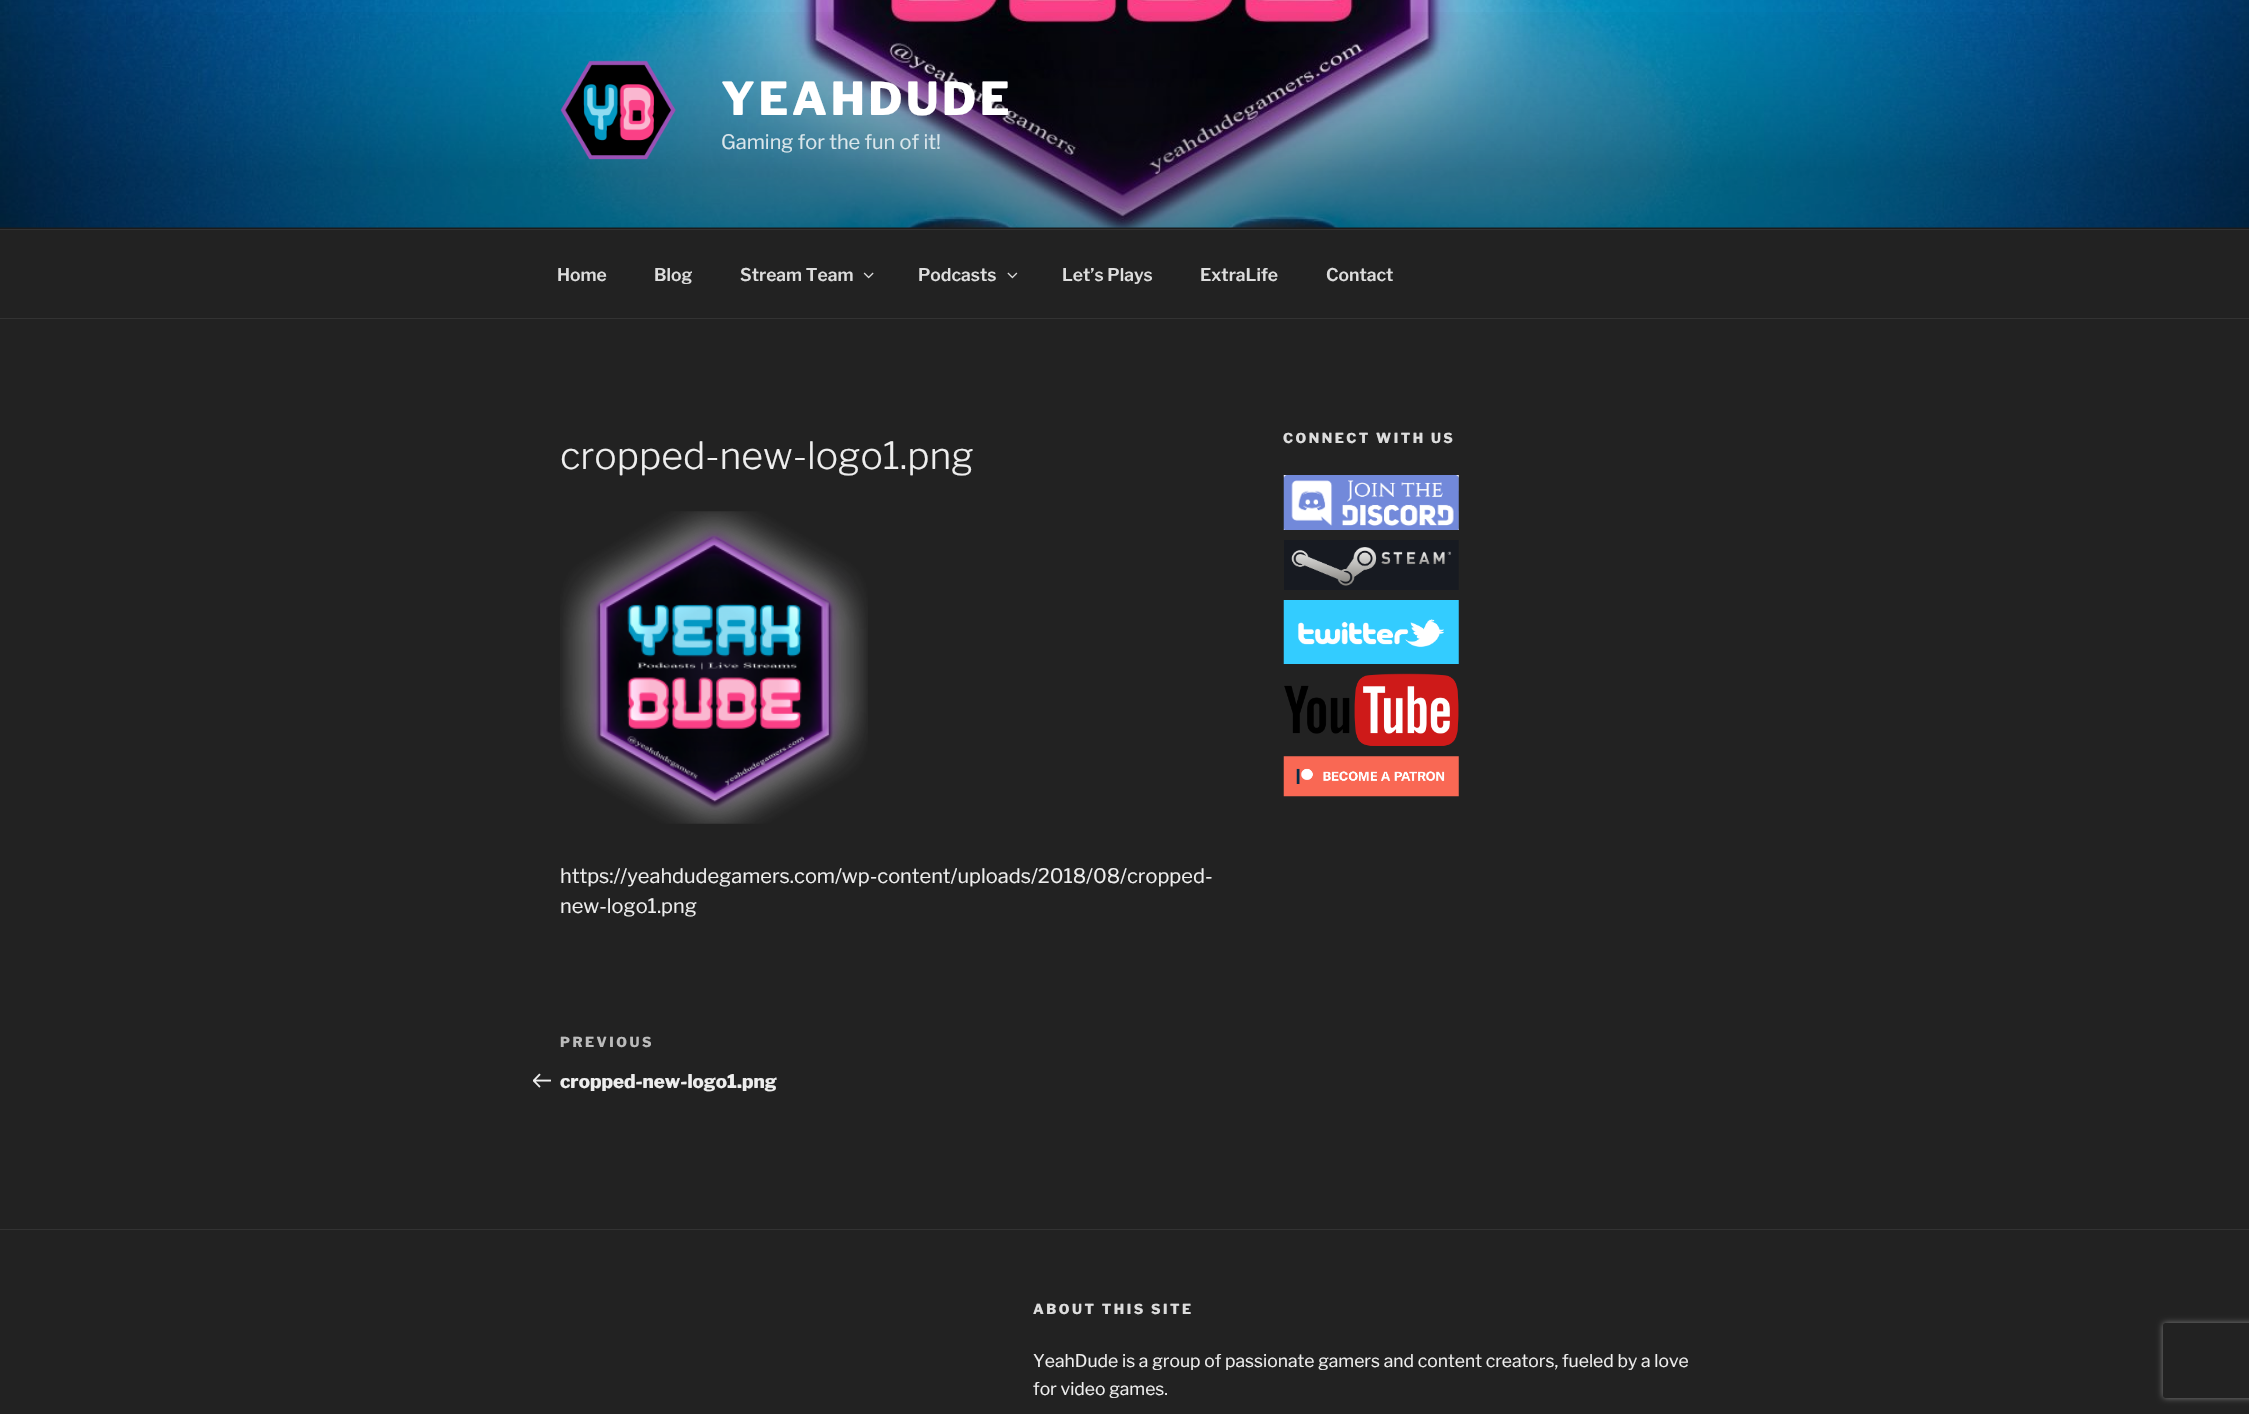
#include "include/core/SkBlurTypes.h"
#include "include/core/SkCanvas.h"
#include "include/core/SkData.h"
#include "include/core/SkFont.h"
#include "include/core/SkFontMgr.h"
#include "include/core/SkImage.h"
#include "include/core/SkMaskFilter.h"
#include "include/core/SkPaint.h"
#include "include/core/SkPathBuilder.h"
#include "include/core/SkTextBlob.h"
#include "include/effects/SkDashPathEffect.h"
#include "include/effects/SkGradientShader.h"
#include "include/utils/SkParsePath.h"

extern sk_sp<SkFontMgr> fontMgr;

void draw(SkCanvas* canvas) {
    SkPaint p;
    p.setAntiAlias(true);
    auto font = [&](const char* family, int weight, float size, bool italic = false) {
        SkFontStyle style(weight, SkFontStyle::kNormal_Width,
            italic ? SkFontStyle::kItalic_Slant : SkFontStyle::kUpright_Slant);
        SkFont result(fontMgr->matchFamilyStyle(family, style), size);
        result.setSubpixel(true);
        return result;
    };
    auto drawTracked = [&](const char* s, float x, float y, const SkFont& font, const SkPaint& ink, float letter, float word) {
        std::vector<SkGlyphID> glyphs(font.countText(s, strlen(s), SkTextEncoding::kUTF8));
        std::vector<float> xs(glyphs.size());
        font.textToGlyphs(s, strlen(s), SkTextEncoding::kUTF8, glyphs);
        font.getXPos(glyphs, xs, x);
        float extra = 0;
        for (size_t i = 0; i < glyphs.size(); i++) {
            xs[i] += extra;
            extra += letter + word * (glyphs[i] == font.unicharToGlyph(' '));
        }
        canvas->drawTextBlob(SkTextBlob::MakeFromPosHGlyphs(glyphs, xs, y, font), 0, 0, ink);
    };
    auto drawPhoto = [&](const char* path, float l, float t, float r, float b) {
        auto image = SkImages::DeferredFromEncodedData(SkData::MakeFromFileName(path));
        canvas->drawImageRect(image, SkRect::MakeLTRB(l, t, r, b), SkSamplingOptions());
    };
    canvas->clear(0xFF222222);
    p.setColor(0xFF262626);
    canvas->drawRect(SkRect::MakeLTRB(0, 227, 2249, 229), p);
    drawPhoto("media/1.png", 0, 0, 2249, 228);
    {
        const SkColor colors[] = {0x00000000, 0x4D000000, 0x4D000000};
        const float stops[] = {0, 0.75f, 1};
        const SkPoint ends[] = {{1125, 0}, {1125, 229}};
        p.setShader(SkGradientShader::MakeLinear(ends, colors, stops, 3, SkTileMode::kClamp));
        p.setAlpha(255);
    }
    canvas->drawRect(SkRect::MakeLTRB(0, 12, 2249, 229), p);
    drawPhoto("media/2.png", 560, 60, 676, 160);
    auto font1 = font("Libre Franklin", 100, 45);
    p.setShader(nullptr);
    p.setColor(0xFFFFFFFF);
    drawTracked("YEAHDUDE", 721, 115, font1, p, 3.5f, 0);
    auto font2 = font("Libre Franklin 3", 100, 20);
    p.setColor(0xFFDAE6EB);
    canvas->drawString("Gaming for the fun of it!", 721, 149, font2, p);
    p.setColor(0xFF333333);
    canvas->drawRect(SkRect::MakeLTRB(0, 229, 2249, 230), p);
    canvas->drawRect(SkRect::MakeLTRB(0, 318, 2249, 319), p);
    auto font3 = font("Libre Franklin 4", 100, 17.5f);
    p.setColor(0xFFDDDDDD);
    {
        const struct { const char* s; float x, y; } items[] = {
            {"Home", 557, 281},
            {"Blog", 654, 281},
            {"Stream Team", 740, 281},
        };
        for (auto [s, x, y] : items) {
            canvas->drawString(s, x, y, font3, p);
        }
    }
    drawPhoto("media/3.png", 863, 272, 874, 279);
    canvas->drawString("Podcasts", 918, 281, font3, p);
    drawPhoto("media/4.png", 1007, 272, 1018, 279);
    {
        const struct { const char* s; float x, y; } items[] = {
            {"Let’s Plays", 1062, 281},
            {"ExtraLife", 1200, 281},
            {"Contact", 1326, 281},
        };
        for (auto [s, x, y] : items) {
            canvas->drawString(s, x, y, font3, p);
        }
    }
    auto font4 = font("Libre Franklin", 100, 13.75f);
    drawTracked("CONNECT WITH US", 1283, 443, font4, p, 2.5f, 0);
    drawPhoto("media/5.png", 1283, 475, 1459, 530);
    drawPhoto("media/6.png", 1284, 540, 1459, 590);
    drawPhoto("media/7.png", 1283, 600, 1459, 664);
    drawPhoto("media/8.png", 1284, 673, 1459, 746);
    drawPhoto("media/9.png", 1283, 756, 1459, 797);
    auto font5 = font("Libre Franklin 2", 100, 37.5f);
    p.setColor(0xFFEEEEEE);
    canvas->drawString("cropped-new-logo1.png", 560, 469, font5, p);
    drawPhoto("media/10.png", 560, 511, 868, 824);
    canvas->drawString("https://yeahdudegamers.com/wp-content/uploads/2018/08/cropped-", 560, 883, font2, p);
    canvas->drawString("new-logo1.png", 560, 913, font2, p);
    p.setColor(0xFFBBBBBB);
    drawTracked("PREVIOUS", 560, 1047, font4, p, 2.5f, 0);
    drawPhoto("media/11.png", 533, 1073, 551, 1088);
    auto font6 = font("Libre Franklin", 100, 18.75f);
    p.setColor(0xFFEEEEEE);
    canvas->drawString("cropped-new-logo1.png", 560, 1088, font6, p);
    p.setColor(0xFF333333);
    canvas->drawRect(SkRect::MakeLTRB(0, 1229, 2249, 1230), p);
    p.setColor(0xFFDDDDDD);
    drawTracked("ABOUT THIS SITE", 1033, 1314, font4, p, 2.5f, 0);
    auto font7 = font("Libre Franklin 3", 100, 17.5f);
    p.setColor(0xFFEEEEEE);
    canvas->drawString("YeahDude is a group of passionate gamers and content creators, fueled by a love", 1033, 1367, font7, p);
    canvas->drawString("for video games.", 1033, 1395, font7, p);
    canvas->save();
    canvas->clipPath(SkPathBuilder(SkPathFillType::kEvenOdd).moveTo(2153, 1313).lineTo(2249, 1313).lineTo(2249, 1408).lineTo(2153, 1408).close().moveTo(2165.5f, 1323).lineTo(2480.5f, 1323).cubicTo(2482, 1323, 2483, 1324, 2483, 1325.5f).lineTo(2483, 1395.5f).cubicTo(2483, 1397, 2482, 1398, 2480.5f, 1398).lineTo(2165.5f, 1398).cubicTo(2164, 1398, 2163, 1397, 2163, 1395.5f).lineTo(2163, 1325.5f).cubicTo(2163, 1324, 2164, 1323, 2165.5f, 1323).close().detach(), true);
    p.setColor(0xFF808080);
    p.setMaskFilter(SkMaskFilter::MakeBlur(kNormal_SkBlurStyle, 3));
    canvas->drawRoundRect(SkRect::MakeLTRB(2163, 1323, 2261, 1398), 2.5f, 2.5f, p);
    p.setMaskFilter(nullptr);
    canvas->restore();
}
